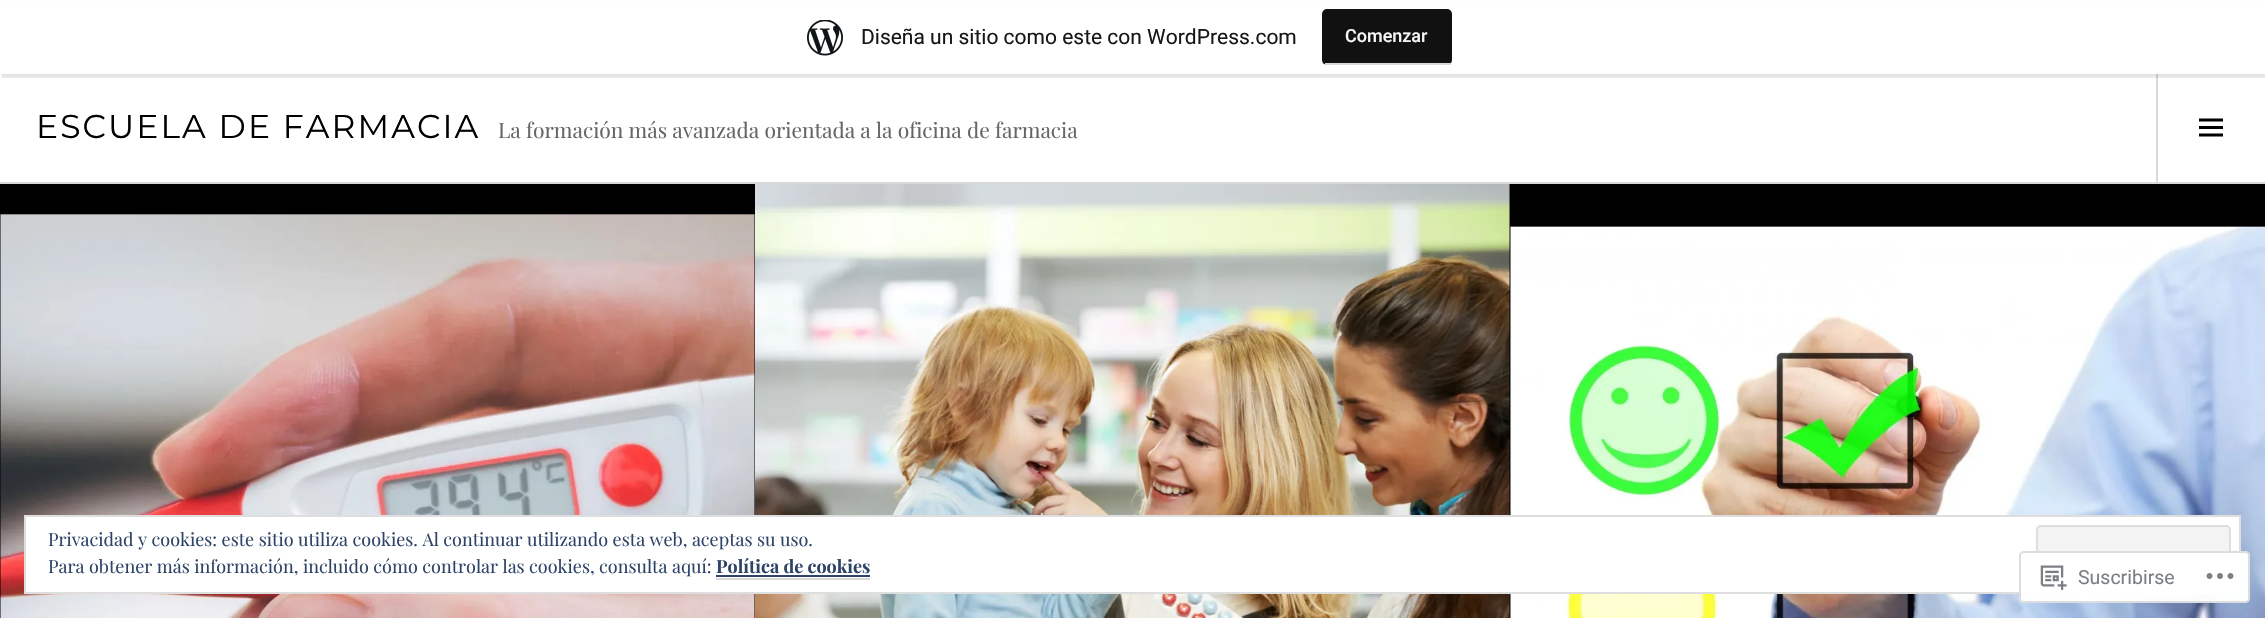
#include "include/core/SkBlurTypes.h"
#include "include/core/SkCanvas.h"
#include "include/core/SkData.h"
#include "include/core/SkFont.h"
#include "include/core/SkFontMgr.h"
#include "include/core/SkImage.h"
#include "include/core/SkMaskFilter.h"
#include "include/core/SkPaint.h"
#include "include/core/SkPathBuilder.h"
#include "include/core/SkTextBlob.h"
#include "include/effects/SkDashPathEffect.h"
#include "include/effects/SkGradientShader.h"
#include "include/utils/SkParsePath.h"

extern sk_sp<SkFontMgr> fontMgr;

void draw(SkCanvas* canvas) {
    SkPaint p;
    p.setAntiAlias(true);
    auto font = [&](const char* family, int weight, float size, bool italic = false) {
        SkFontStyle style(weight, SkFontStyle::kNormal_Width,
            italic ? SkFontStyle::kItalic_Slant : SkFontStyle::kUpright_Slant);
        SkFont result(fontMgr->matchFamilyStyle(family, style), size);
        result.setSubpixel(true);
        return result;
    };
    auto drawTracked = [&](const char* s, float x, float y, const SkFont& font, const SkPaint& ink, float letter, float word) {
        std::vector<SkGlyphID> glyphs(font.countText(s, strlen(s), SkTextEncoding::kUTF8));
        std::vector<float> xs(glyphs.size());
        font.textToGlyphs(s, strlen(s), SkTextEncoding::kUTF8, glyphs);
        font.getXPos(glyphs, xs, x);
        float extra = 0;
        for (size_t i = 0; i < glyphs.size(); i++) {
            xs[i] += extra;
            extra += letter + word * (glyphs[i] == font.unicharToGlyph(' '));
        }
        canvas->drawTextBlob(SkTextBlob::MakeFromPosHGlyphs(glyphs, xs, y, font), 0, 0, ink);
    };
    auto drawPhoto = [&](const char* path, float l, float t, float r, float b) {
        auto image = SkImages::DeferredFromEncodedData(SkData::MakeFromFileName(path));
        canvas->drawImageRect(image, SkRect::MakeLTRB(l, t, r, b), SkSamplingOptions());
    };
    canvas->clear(0xFFFFFFFF);
    p.setColor(0xFFD9D9D9);
    canvas->drawRect(SkRect::MakeLTRB(2156, 74, 2158, 182), p);
    p.setColor(0x0D000000);
    p.setMaskFilter(SkMaskFilter::MakeBlur(kNormal_SkBlurStyle, 1.5f));
    canvas->drawRect(SkRect::MakeLTRB(0, 2, 2265, 75), p);
    p.setMaskFilter(nullptr);
    p.setColor(0x14000000);
    canvas->drawPath(SkPathBuilder().moveTo(2, 74).lineTo(2, 78).lineTo(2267, 78).lineTo(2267, 5).lineTo(2265, 5).lineTo(2265, 74).close().detach(), p);
    p.setColor(0xFFFFFFFF);
    canvas->drawRect(SkRect::MakeLTRB(0, 1, 2265, 74), p);
    drawPhoto("media/1.png", 807, 20, 843, 56);
    auto font1 = font("Roboto", 400, 21);
    p.setColor(0xFF171717);
    canvas->drawString("Diseña un sitio como este con WordPress.com", 861, 44, font1, p);
    p.setColor(0xFF111111);
    canvas->drawRoundRect(SkRect::MakeLTRB(1322, 9, 1452, 65), 5, 5, p);
    p.setColor(0xFFD9D9D9);
    canvas->drawRect(SkRect::MakeLTRB(1325, 63, 1451, 65), p);
    auto font2 = font("Roboto", 500, 18);
    p.setColor(0xFFF6F7F7);
    canvas->drawString("Comenzar", 1345, 42, font2, p);
    p.setColor(0xFFD9D9D9);
    canvas->drawRect(SkRect::MakeLTRB(0, 182, 2265, 184), p);
    auto font3 = font("Montserrat", 400, 33);
    p.setColor(0xFF000000);
    drawTracked("ESCUELA DE FARMACIA", 36, 138, font3, p, 2.1f, 0);
    auto font4 = font("Playfair Display", 400, 21);
    p.setColor(0xFF666666);
    canvas->drawString("La formación más avanzada orientada a la oficina de farmacia", 498, 138, font4, p);
    drawPhoto("media/2.png", 2199, 118, 2223, 137);
    p.setColor(0xFF000000);
    canvas->drawRect(SkRect::MakeLTRB(0, 184, 755, 618), p);
    drawPhoto("media/3.png", 0, 214, 755, 618);
    canvas->drawRect(SkRect::MakeLTRB(1509, 184, 1511, 618), p);
    drawPhoto("media/4.png", 755, 184, 1510, 618);
    canvas->drawRect(SkRect::MakeLTRB(1511, 184, 2265, 227), p);
    drawPhoto("media/5.png", 1510, 226, 2265, 618);
    p.setColor(0xFFFFFFFF);
    canvas->drawRect(SkRect::MakeLTRB(25, 516, 2240, 593), p);
    p.setStyle(SkPaint::kStroke_Style);
    p.setStrokeWidth(2);
    p.setColor(0xFFDEDEDE);
    canvas->drawRect(SkRect::MakeLTRB(25, 516, 2240, 593), p);
    auto font5 = font("Playfair Display", 400, 18);
    p.setStyle(SkPaint::kFill_Style);
    p.setColor(0xFF2E4467);
    canvas->drawString("Privacidad y cookies: este sitio utiliza cookies. Al continuar utilizando esta web, aceptas su uso.", 48, 546, font5, p);
    p.setColor(0xFFF3F3F3);
    canvas->drawRoundRect(SkRect::MakeLTRB(2037, 526, 2230, 583), 4, 4, p);
    p.setStyle(SkPaint::kStroke_Style);
    p.setColor(0xFFDEDEDE);
    canvas->drawRoundRect(SkRect::MakeLTRB(2037, 526, 2230, 583), 4, 4, p);
    p.setStyle(SkPaint::kFill_Style);
    p.setColor(0xFF2E4467);
    canvas->drawString("Para obtener más información, incluido cómo controlar las cookies, consulta aquí:", 48, 573, font5, p);
    auto font6 = font("Playfair Display", 700, 18);
    canvas->drawString("Política de cookies", 716, 573, font6, p);
    p.setColor(0xFFD9D9D9);
    canvas->drawRect(SkRect::MakeLTRB(716, 578, 870, 580), p);
    p.setColor(0xFF2E4467);
    canvas->drawRect(SkRect::MakeLTRB(716, 575, 870, 577), p);
    p.setColor(0xFAFFFFFF);
    canvas->drawRoundRect(SkRect::MakeLTRB(2019, 551, 2250, 603), 5, 5, p);
    p.setStyle(SkPaint::kStroke_Style);
    p.setColor(0xFADCDCDE);
    canvas->drawRoundRect(SkRect::MakeLTRB(2020, 552, 2249, 602), 4, 4, p);
    drawPhoto("media/6.png", 2040, 565, 2067, 590);
    auto font7 = font("Roboto", 400, 19.5f);
    p.setStyle(SkPaint::kFill_Style);
    p.setColor(0xFF7B7F84);
    canvas->drawString("Suscribirse", 2078, 584, font7, p);
    drawPhoto("media/7.png", 2206, 573, 2234, 579);
}
